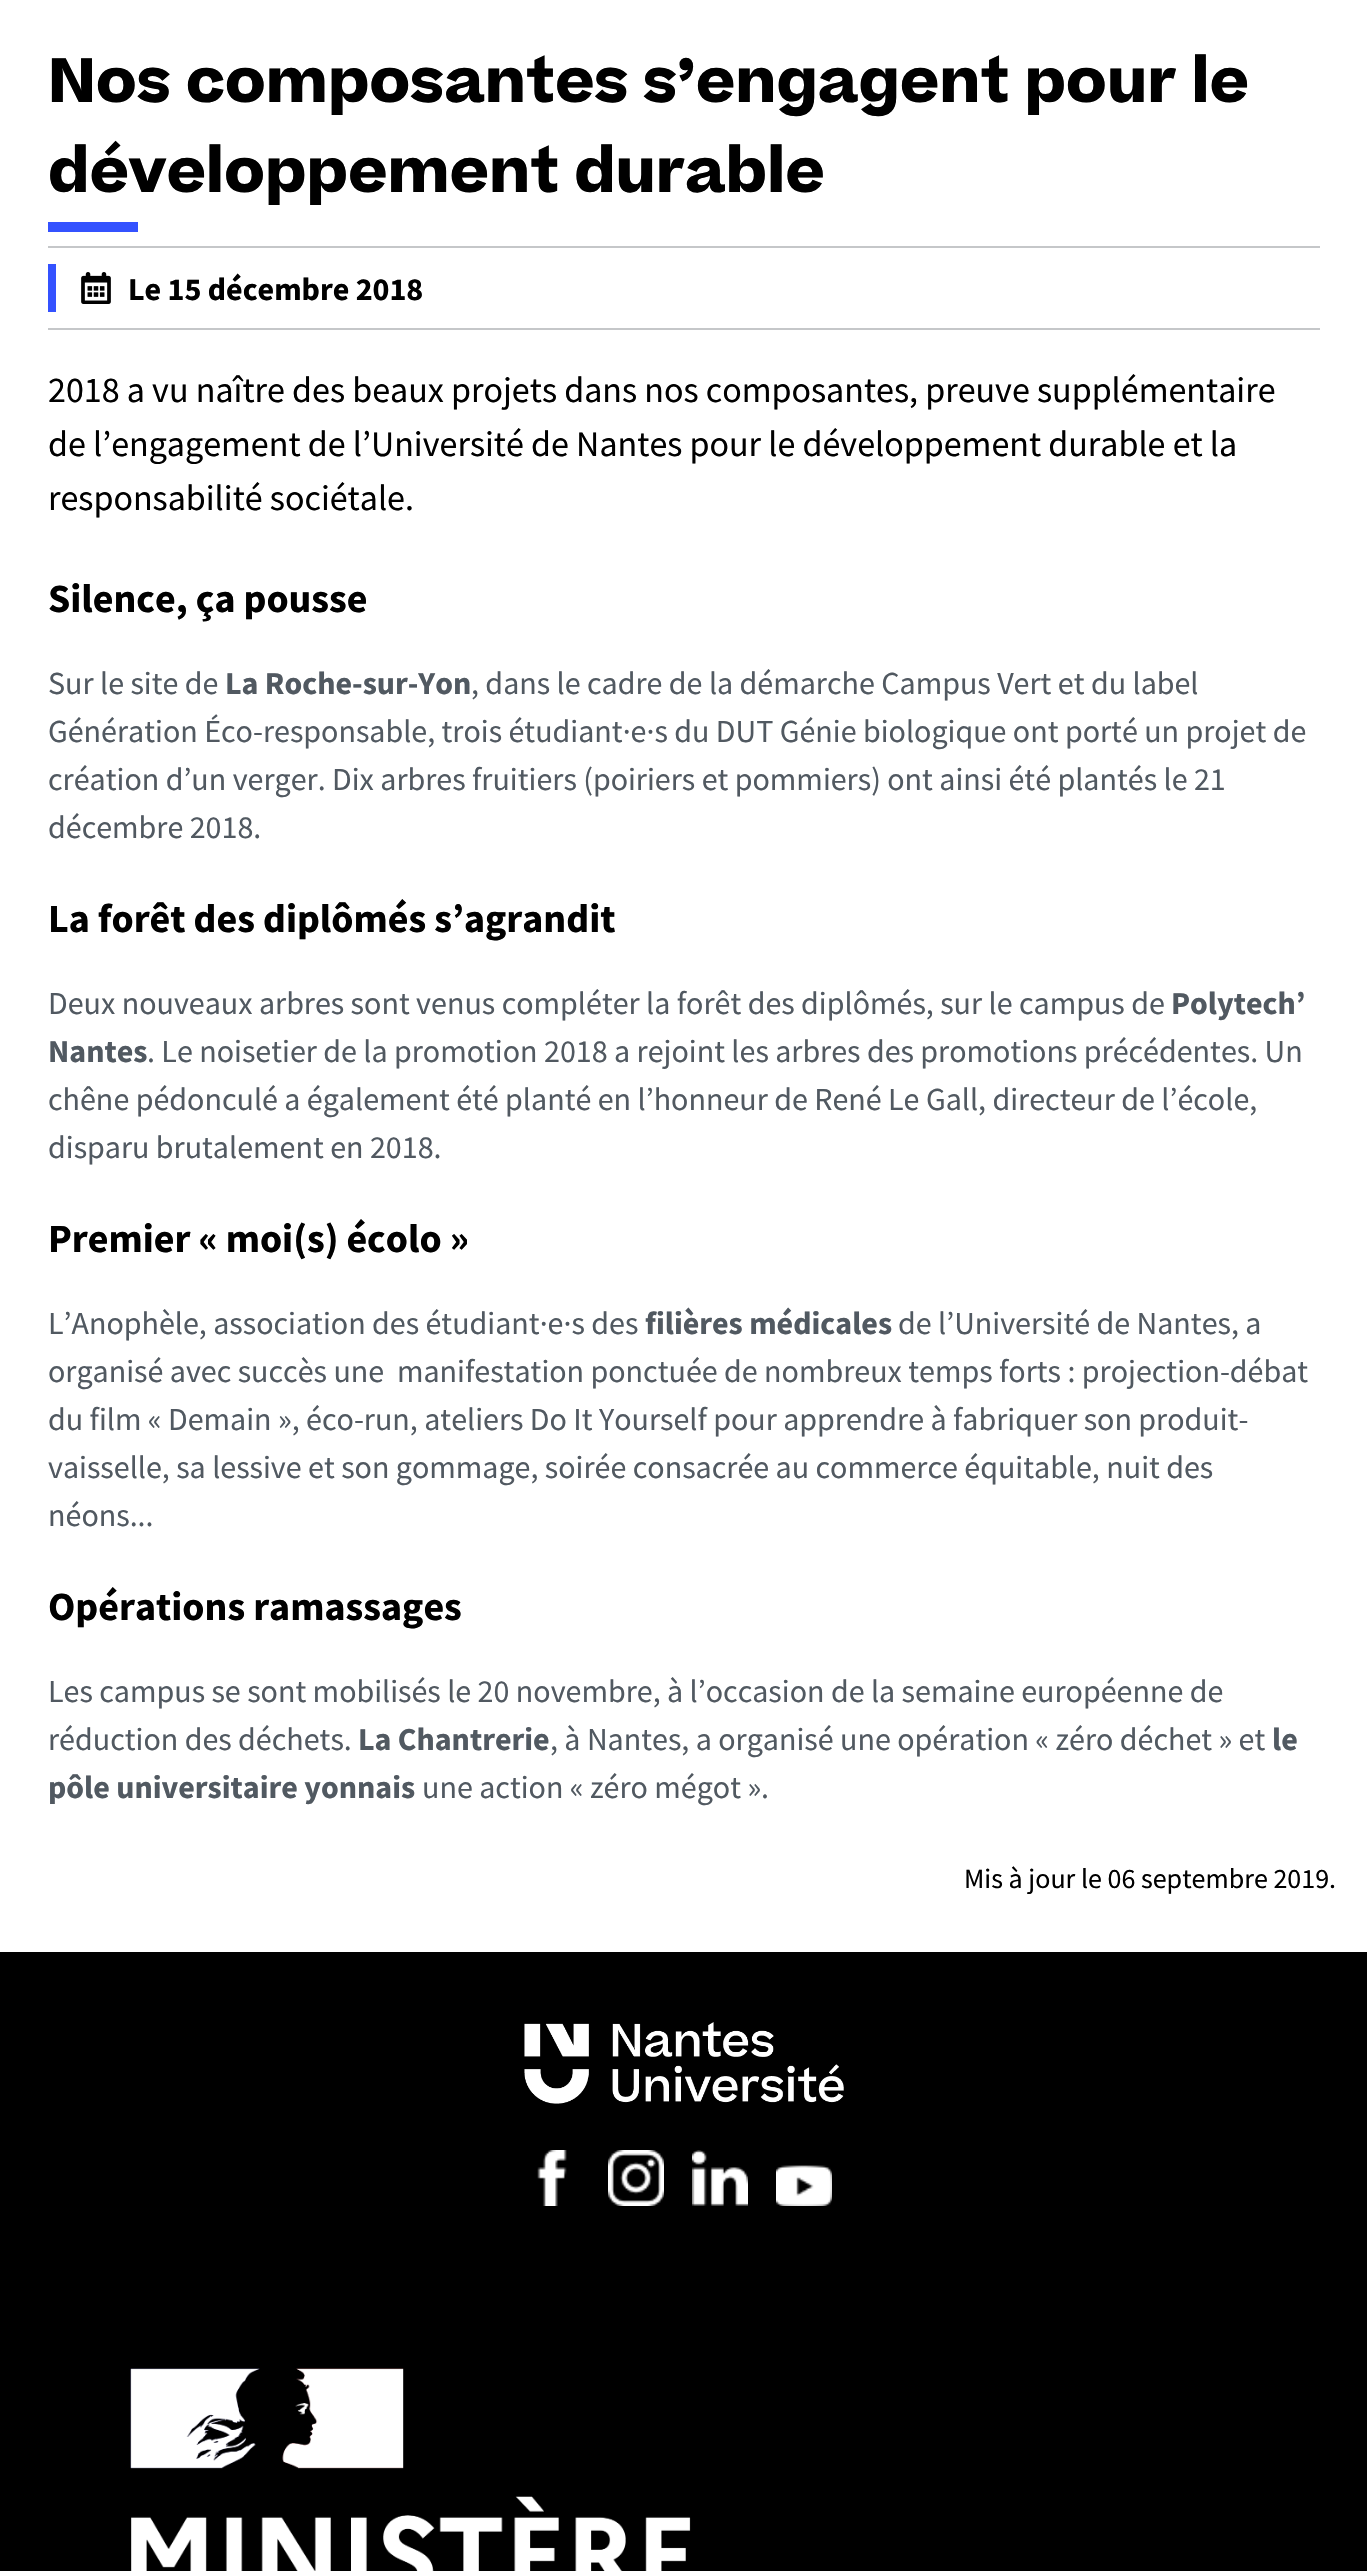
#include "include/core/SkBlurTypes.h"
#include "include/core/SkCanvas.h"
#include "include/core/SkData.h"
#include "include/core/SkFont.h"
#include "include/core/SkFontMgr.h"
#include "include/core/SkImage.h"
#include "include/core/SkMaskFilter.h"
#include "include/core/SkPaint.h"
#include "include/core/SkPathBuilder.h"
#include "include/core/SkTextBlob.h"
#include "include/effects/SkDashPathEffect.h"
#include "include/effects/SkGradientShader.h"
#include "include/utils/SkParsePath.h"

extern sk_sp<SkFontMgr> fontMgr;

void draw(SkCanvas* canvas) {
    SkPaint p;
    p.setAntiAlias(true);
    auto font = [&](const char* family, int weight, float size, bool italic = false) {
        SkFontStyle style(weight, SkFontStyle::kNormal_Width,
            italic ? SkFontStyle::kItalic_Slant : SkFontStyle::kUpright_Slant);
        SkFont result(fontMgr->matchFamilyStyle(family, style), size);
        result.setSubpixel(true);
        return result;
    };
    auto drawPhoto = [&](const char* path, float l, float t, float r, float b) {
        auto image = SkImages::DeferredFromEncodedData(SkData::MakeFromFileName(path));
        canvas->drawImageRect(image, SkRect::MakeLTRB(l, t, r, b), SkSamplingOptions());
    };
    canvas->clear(0xFFFFFFFF);
    auto font1 = font("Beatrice", 700, 60);
    p.setColor(0xFF000000);
    canvas->drawString("Nos composantes s’engagent pour le", 48, 102, font1, p);
    canvas->drawString("développement durable", 48, 192, font1, p);
    {
        const struct { float l, t, r, b; SkColor color; } items[] = {
            {48, 222, 138, 232, 0xFF3452FF},
            {48, 246, 1320, 248, 0xFFC5C7C9},
            {48, 264, 56, 312, 0xFF3452FF},
        };
        for (auto [l, t, r, b, color] : items) {
            p.setColor(color);
            canvas->drawRect(SkRect::MakeLTRB(l, t, r, b), p);
        }
    }
    drawPhoto("media/1.png", 81, 272, 111, 304);
    auto font2 = font("Source Sans Pro", 700, 32);
    p.setColor(0xFF000000);
    canvas->drawString("Le 15 décembre 2018", 128, 300, font2, p);
    p.setColor(0xFFC5C7C9);
    canvas->drawRect(SkRect::MakeLTRB(48, 328, 1320, 330), p);
    auto font3 = font("Source Sans Pro", 400, 36);
    p.setColor(0xFF000000);
    {
        const struct { const char* s; float x, y; } items[] = {
            {"2018 a vu naître des beaux projets dans nos composantes, preuve supplémentaire", 48, 402},
            {"de l’engagement de l’Université de Nantes pour le développement durable et la", 48, 456},
            {"responsabilité sociétale.", 48, 510},
        };
        for (auto [s, x, y] : items) {
            canvas->drawString(s, x, y, font3, p);
        }
    }
    auto font4 = font("Source Sans Pro", 700, 40);
    canvas->drawString("Silence, ça pousse", 48, 612, font4, p);
    auto font5 = font("Source Sans Pro", 400, 32);
    p.setColor(0xFF515961);
    canvas->drawString("Sur le site de", 48, 694, font5, p);
    canvas->drawString("La Roche-sur-Yon", 225, 694, font2, p);
    {
        const struct { const char* s; float x, y; } items[] = {
            {", dans le cadre de la démarche Campus Vert et du label", 471, 694},
            {"Génération Éco-responsable, trois étudiant·e·s du DUT Génie biologique ont porté un projet de", 48, 742},
            {"création d’un verger. Dix arbres fruitiers (poiriers et pommiers) ont ainsi été plantés le 21", 48, 790},
            {"décembre 2018.", 48, 838},
        };
        for (auto [s, x, y] : items) {
            canvas->drawString(s, x, y, font5, p);
        }
    }
    p.setColor(0xFF000000);
    canvas->drawString("La forêt des diplômés s’agrandit", 48, 932, font4, p);
    p.setColor(0xFF515961);
    canvas->drawString("Deux nouveaux arbres sont venus compléter la forêt des diplômés, sur le campus de", 48, 1014, font5, p);
    canvas->drawString("Polytech’", 1171, 1014, font2, p);
    canvas->drawString("Nantes", 48, 1062, font2, p);
    {
        const struct { const char* s; float x, y; } items[] = {
            {". Le noisetier de la promotion 2018 a rejoint les arbres des promotions précédentes. Un", 147, 1062},
            {"chêne pédonculé a également été planté en l’honneur de René Le Gall, directeur de l’école,", 48, 1110},
            {"disparu brutalement en 2018.", 48, 1158},
        };
        for (auto [s, x, y] : items) {
            canvas->drawString(s, x, y, font5, p);
        }
    }
    p.setColor(0xFF000000);
    canvas->drawString("Premier « moi(s) écolo »", 48, 1252, font4, p);
    p.setColor(0xFF515961);
    canvas->drawString("L’Anophèle, association des étudiant·e·s des", 48, 1334, font5, p);
    canvas->drawString("filières médicales", 645, 1334, font2, p);
    {
        const struct { const char* s; float x, y; } items[] = {
            {"de l’Université de Nantes, a", 898, 1334},
            {"organisé avec succès une  manifestation ponctuée de nombreux temps forts : projection-débat", 48, 1382},
            {"du film « Demain », éco-run, ateliers Do It Yourself pour apprendre à fabriquer son produit-", 48, 1430},
            {"vaisselle, sa lessive et son gommage, soirée consacrée au commerce équitable, nuit des", 48, 1478},
            {"néons...", 48, 1526},
        };
        for (auto [s, x, y] : items) {
            canvas->drawString(s, x, y, font5, p);
        }
    }
    p.setColor(0xFF000000);
    canvas->drawString("Opérations ramassages", 48, 1620, font4, p);
    p.setColor(0xFF515961);
    canvas->drawString("Les campus se sont mobilisés le 20 novembre, à l’occasion de la semaine européenne de", 48, 1702, font5, p);
    canvas->drawString("réduction des déchets.", 48, 1750, font5, p);
    canvas->drawString("La Chantrerie", 358, 1750, font2, p);
    canvas->drawString(", à Nantes, a organisé une opération « zéro déchet » et", 550, 1750, font5, p);
    canvas->drawString("le", 1272, 1750, font2, p);
    canvas->drawString("pôle universitaire yonnais", 48, 1798, font2, p);
    canvas->drawString("une action « zéro mégot ».", 422, 1798, font5, p);
    auto font6 = font("Source Sans Pro", 400, 28);
    p.setColor(0xFF000000);
    canvas->drawString("Mis à jour le 06 septembre 2019.", 964, 1888, font6, p);
    canvas->drawRect(SkRect::MakeLTRB(0, 1952, 1367, 2571), p);
    drawPhoto("media/2.png", 524, 2022, 844, 2104);
    drawPhoto("media/3.png", 537, 2150, 567, 2206);
    drawPhoto("media/4.png", 608, 2150, 664, 2206);
    drawPhoto("media/5.png", 692, 2150, 748, 2206);
    drawPhoto("media/6.png", 776, 2165, 832, 2206);
    drawPhoto("media/7.png", 130, 2368, 691, 2571);
}
